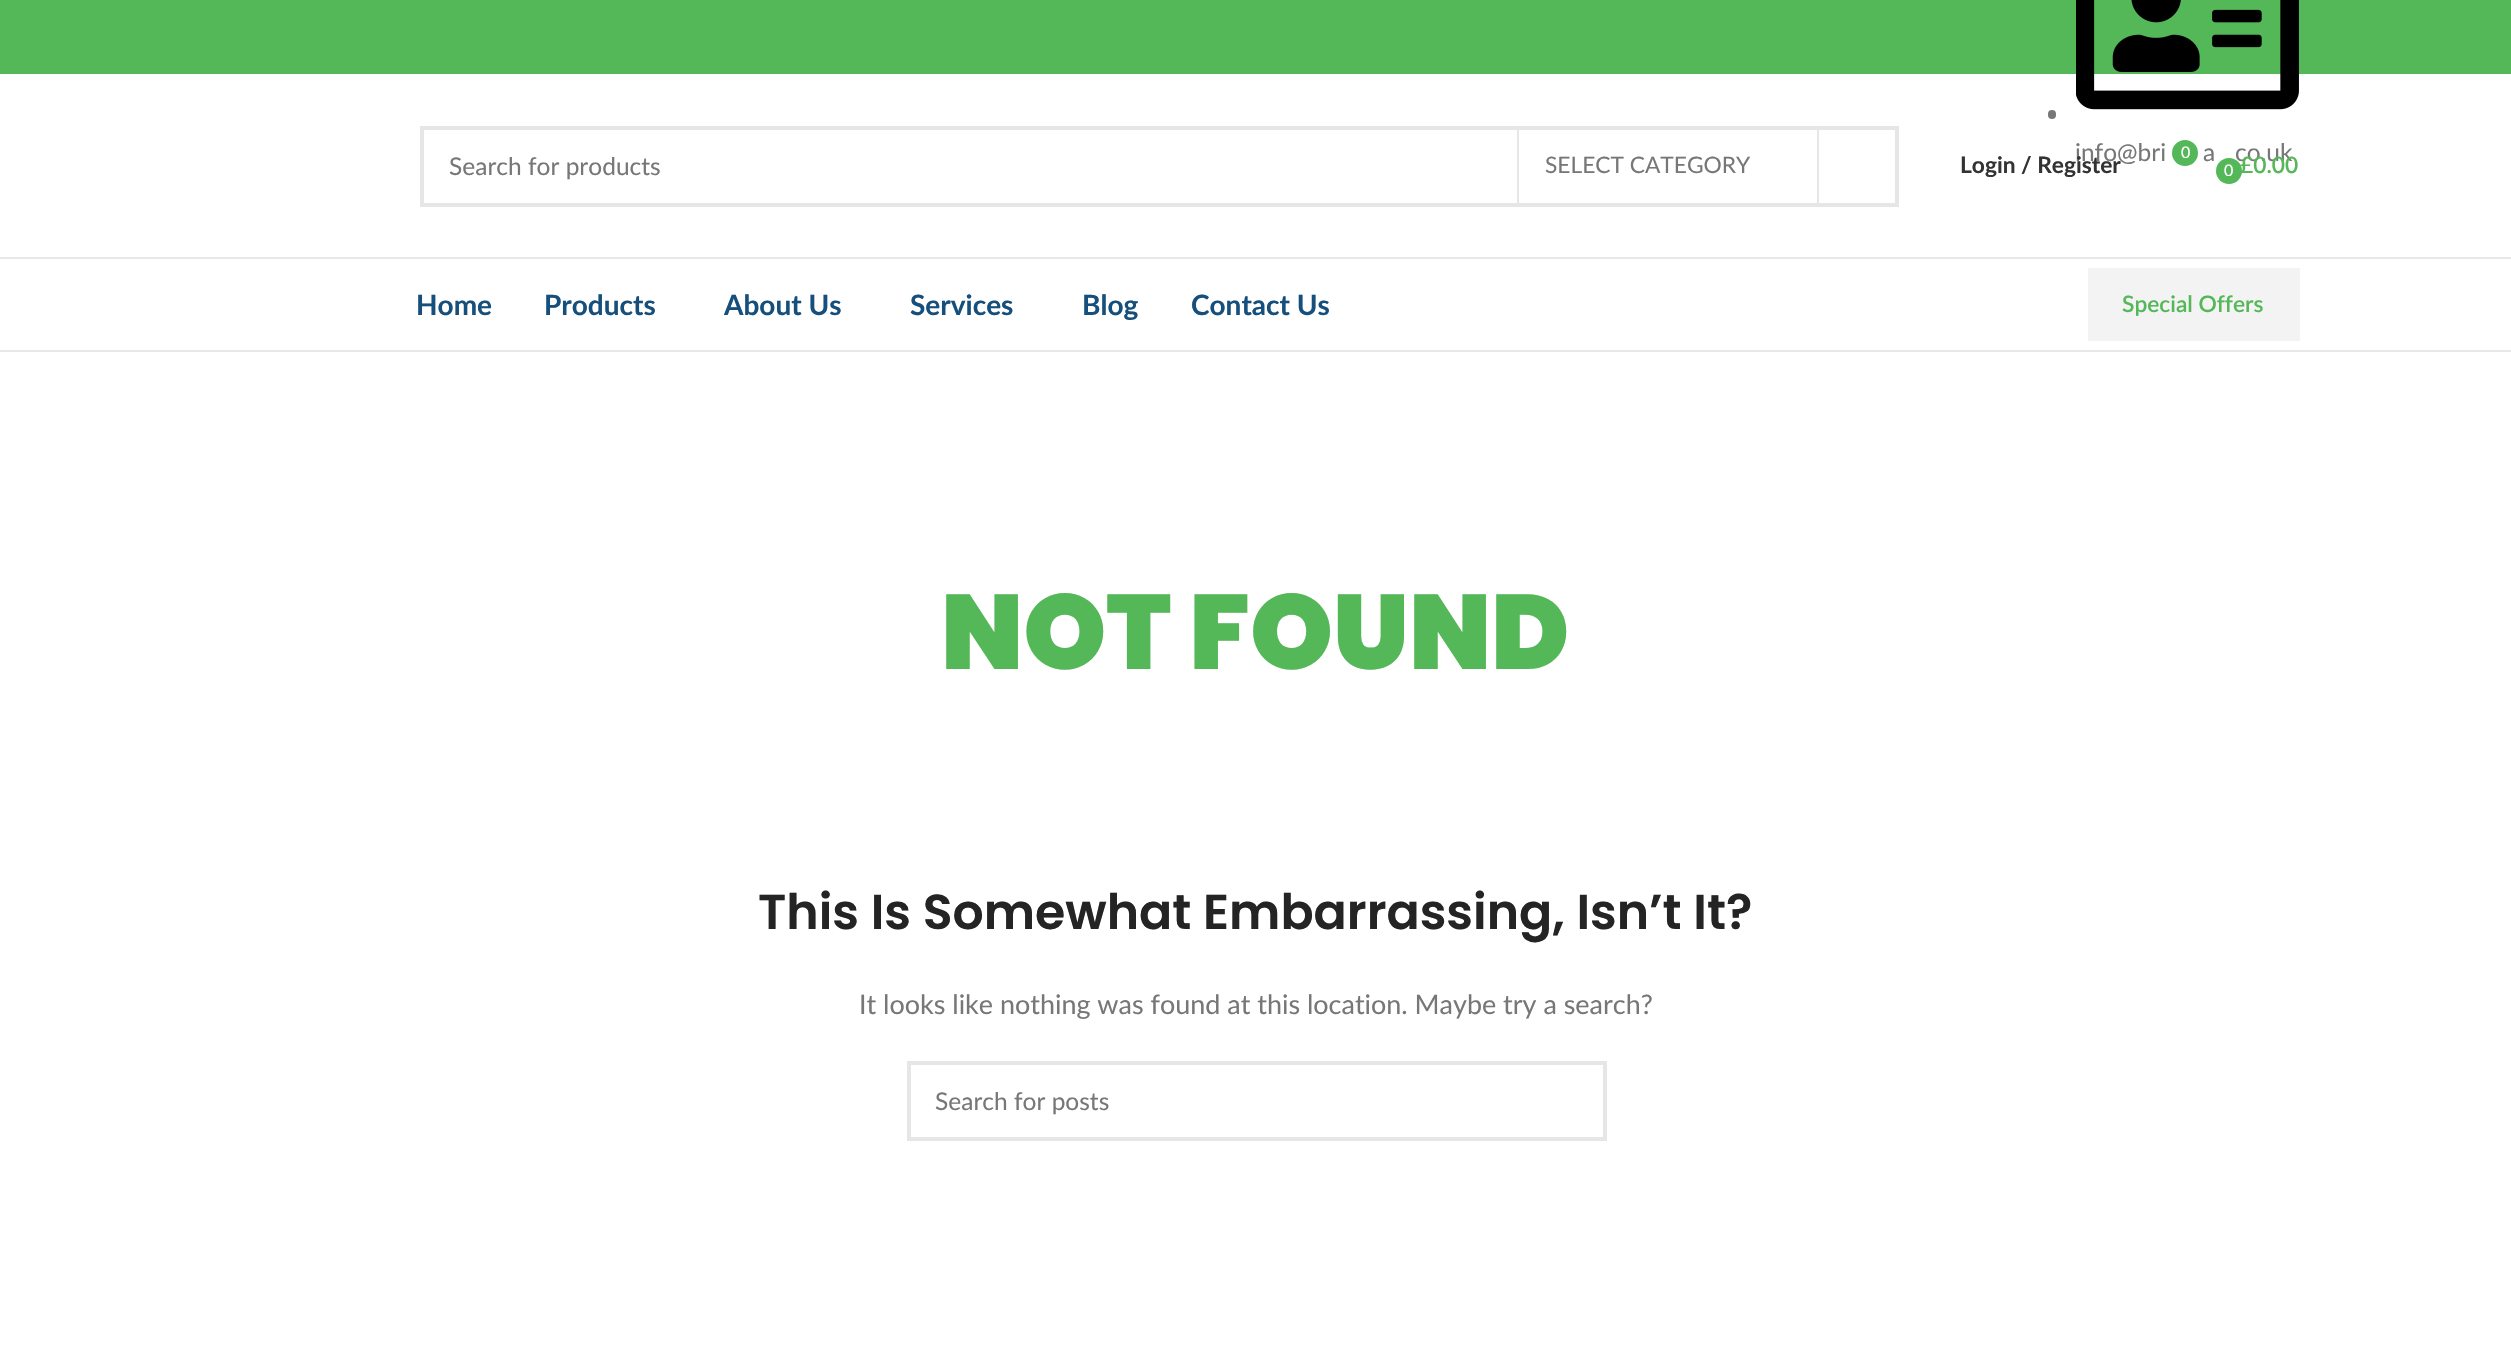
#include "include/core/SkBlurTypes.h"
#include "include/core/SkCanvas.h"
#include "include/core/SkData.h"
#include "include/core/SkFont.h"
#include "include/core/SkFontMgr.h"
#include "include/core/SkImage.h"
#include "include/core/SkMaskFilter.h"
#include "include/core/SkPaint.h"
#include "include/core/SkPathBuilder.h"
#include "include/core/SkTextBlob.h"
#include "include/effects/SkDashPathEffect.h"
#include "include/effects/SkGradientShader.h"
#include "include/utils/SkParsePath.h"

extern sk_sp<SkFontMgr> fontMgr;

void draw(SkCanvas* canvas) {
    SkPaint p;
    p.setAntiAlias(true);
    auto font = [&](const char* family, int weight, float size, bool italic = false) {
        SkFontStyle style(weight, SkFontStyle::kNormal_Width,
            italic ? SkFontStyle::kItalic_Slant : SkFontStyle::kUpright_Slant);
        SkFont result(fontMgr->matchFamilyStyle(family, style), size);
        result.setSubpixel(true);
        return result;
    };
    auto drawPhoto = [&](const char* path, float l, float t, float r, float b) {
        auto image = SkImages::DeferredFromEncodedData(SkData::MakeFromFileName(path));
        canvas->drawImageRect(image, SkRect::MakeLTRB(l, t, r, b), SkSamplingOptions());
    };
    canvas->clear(0xFFFFFFFF);
    p.setColor(0xFF54B858);
    canvas->drawRect(SkRect::MakeLTRB(0, 0, 2511, 74), p);
    drawPhoto("media/1.png", 2076, 0, 2299, 110);
    p.setColor(0xFF777777);
    canvas->drawRoundRect(SkRect::MakeLTRB(2048, 110, 2056, 119), 4, 4, p);
    auto font1 = font("Lato", 400, 24.5f);
    {
        const struct { const char* s; float x, y; } items[] = {
            {"info@bri", 2075, 161},
            {"a", 2203, 161},
            {"co.uk", 2235, 161},
        };
        for (auto [s, x, y] : items) {
            canvas->drawString(s, x, y, font1, p);
        }
    }
    p.setColor(0xFFE8E8E8);
    canvas->drawRect(SkRect::MakeLTRB(0, 257, 2511, 259), p);
    p.setStyle(SkPaint::kStroke_Style);
    p.setStrokeWidth(4);
    p.setColor(0xFFE6E6E6);
    canvas->drawRect(SkRect::MakeLTRB(422, 128, 1897, 205), p);
    p.setStyle(SkPaint::kFill_Style);
    p.setColor(0xFF777777);
    canvas->drawString("Search for products", 449, 175, font1, p);
    p.setColor(0xFFE6E6E6);
    canvas->drawRect(SkRect::MakeLTRB(1817, 130, 1819, 203), p);
    canvas->drawRect(SkRect::MakeLTRB(1517, 130, 1519, 203), p);
    auto font2 = font("Lato", 400, 22.75f);
    p.setColor(0xFF777777);
    canvas->drawString("SELECT CATEGORY", 1545, 173, font2, p);
    p.setColor(0xFF54B858);
    canvas->drawCircle(2185, 153, 13, p);
    auto font3 = font("Lato", 400, 16);
    p.setColor(0xFFFFFFFF);
    canvas->drawString("0", 2181, 158, font3, p);
    auto font4 = font("Lato", 700, 22.75f);
    p.setColor(0xFF333333);
    canvas->drawString("Login / Register", 1960, 173, font4, p);
    p.setColor(0xFF54B858);
    canvas->drawCircle(2229, 171, 13, p);
    p.setColor(0xFFFFFFFF);
    canvas->drawString("0", 2224, 176, font3, p);
    auto font5 = font("Lato", 600, 22.75f);
    p.setColor(0xFF54B858);
    canvas->drawString("£0.00", 2240, 173, font5, p);
    p.setColor(0xFFE8E8E8);
    canvas->drawRect(SkRect::MakeLTRB(0, 350, 2511, 352), p);
    auto font6 = font("Lato", 700, 28);
    p.setColor(0xFF164F7C);
    {
        const struct { const char* s; float x, y; } items[] = {
            {"Home", 416, 315},
            {"Products", 544, 315},
            {"About Us", 724, 315},
            {"Services", 910, 315},
            {"Blog", 1082, 315},
            {"Contact Us", 1191, 315},
        };
        for (auto [s, x, y] : items) {
            canvas->drawString(s, x, y, font6, p);
        }
    }
    p.setColor(0xFFF3F3F3);
    canvas->drawRect(SkRect::MakeLTRB(2088, 268, 2300, 341), p);
    p.setColor(0xFF54B858);
    canvas->drawString("Special Offers", 2122, 312, font5, p);
    auto font7 = font("Poppins", 900, 105.5f);
    canvas->drawString("NOT FOUND", 941, 669, font7, p);
    auto font8 = font("Poppins", 600, 49);
    p.setColor(0xFF242424);
    canvas->drawString("This Is Somewhat Embarrassing, Isn’t It?", 758, 929, font8, p);
    auto font9 = font("Lato", 400, 26.95f);
    p.setColor(0xFF777777);
    canvas->drawString("It looks like nothing was found at this location. Maybe try a search?", 859, 1014, font9, p);
    p.setStyle(SkPaint::kStroke_Style);
    p.setColor(0xFFE6E6E6);
    canvas->drawRect(SkRect::MakeLTRB(909, 1063, 1605, 1139), p);
    p.setStyle(SkPaint::kFill_Style);
    p.setColor(0xFF777777);
    canvas->drawString("Search for posts", 935, 1110, font1, p);
}
